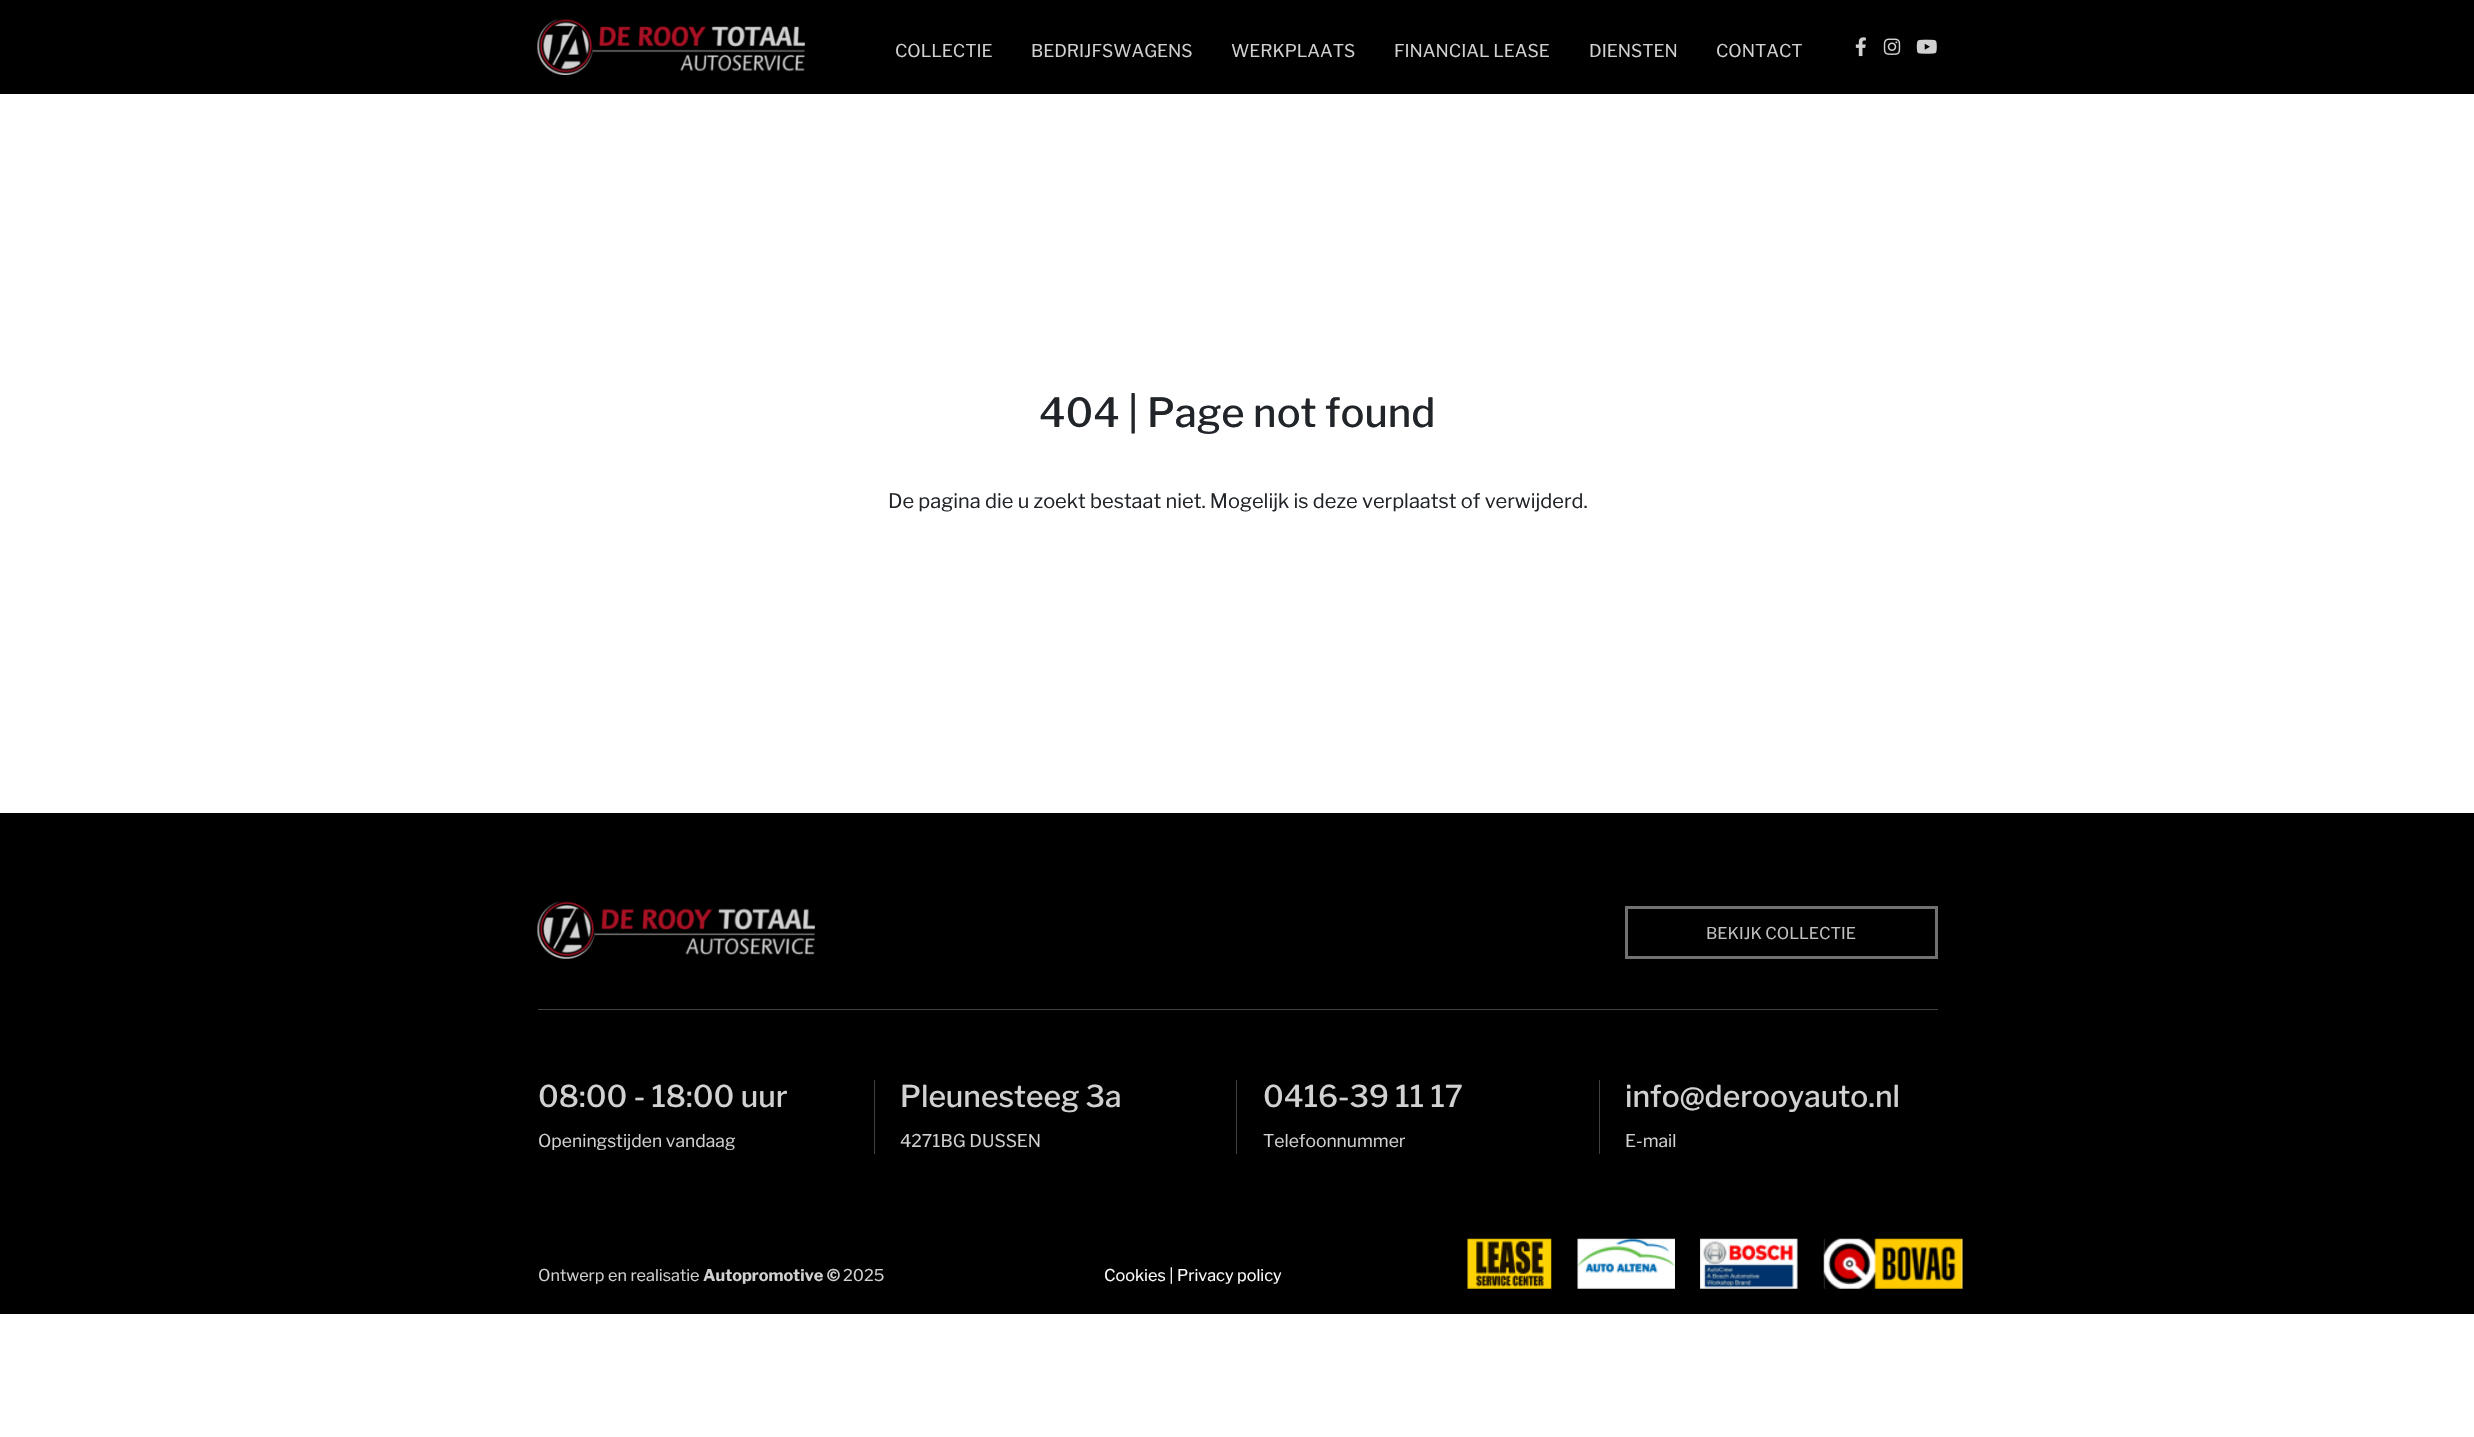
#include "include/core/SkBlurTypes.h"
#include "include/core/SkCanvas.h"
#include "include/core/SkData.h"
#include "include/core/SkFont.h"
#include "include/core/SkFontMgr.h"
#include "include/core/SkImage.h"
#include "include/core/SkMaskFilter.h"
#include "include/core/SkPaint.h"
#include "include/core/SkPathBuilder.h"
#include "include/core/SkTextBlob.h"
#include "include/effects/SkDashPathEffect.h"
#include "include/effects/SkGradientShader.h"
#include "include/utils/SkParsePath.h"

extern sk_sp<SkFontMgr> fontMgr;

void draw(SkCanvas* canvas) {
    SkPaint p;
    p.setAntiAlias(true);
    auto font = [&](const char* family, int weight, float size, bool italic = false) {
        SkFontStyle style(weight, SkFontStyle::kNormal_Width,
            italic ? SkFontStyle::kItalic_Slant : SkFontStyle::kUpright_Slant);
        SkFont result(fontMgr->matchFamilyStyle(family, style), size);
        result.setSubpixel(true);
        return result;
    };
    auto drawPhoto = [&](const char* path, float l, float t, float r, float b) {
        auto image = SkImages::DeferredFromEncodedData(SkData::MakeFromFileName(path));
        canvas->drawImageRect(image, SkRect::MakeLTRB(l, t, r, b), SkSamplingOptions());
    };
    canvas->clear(0xFFFFFFFF);
    p.setColor(0xFF000000);
    canvas->drawRect(SkRect::MakeLTRB(0, 0, 2474, 94), p);
    drawPhoto("media/1.png", 537, 18, 805, 75);
    auto font1 = font("Libre Franklin", 400, 17.5f);
    p.setColor(0xFFD1D1D1);
    {
        const struct { const char* s; float x, y; } items[] = {
            {"COLLECTIE", 895, 57},
            {"BEDRIJFSWAGENS", 1031, 57},
            {"WERKPLAATS", 1231, 57},
            {"FINANCIAL LEASE", 1394, 57},
            {"DIENSTEN", 1589, 57},
            {"CONTACT", 1716, 57},
        };
        for (auto [s, x, y] : items) {
            canvas->drawString(s, x, y, font1, p);
        }
    }
    drawPhoto("media/2.png", 1855, 37, 1866, 57);
    drawPhoto("media/3.png", 1883, 38, 1901, 55);
    drawPhoto("media/4.png", 1916, 39, 1937, 54);
    auto font2 = font("Libre Franklin", 500, 40);
    p.setColor(0xFF212529);
    canvas->drawString("404 | Page not found", 1039, 427, font2, p);
    auto font3 = font("Libre Franklin", 400, 20);
    canvas->drawString("De pagina die u zoekt bestaat niet. Mogelijk is deze verplaatst of verwijderd.", 888, 508, font3, p);
    p.setColor(0xFF000000);
    canvas->drawRect(SkRect::MakeLTRB(0, 813, 2474, 1314), p);
    drawPhoto("media/5.png", 537, 901, 815, 959);
    p.setStyle(SkPaint::kStroke_Style);
    p.setStrokeWidth(3);
    p.setColor(0xFF717171);
    canvas->drawRect(SkRect::MakeLTRB(1626.5f, 907.5f, 1936.5f, 957.5f), p);
    auto font4 = font("Libre Franklin", 400, 16.25f);
    p.setStyle(SkPaint::kFill_Style);
    p.setColor(0xFFC1C1C1);
    canvas->drawString("BEKIJK COLLECTIE", 1706, 939, font4, p);
    p.setColor(0xFF414141);
    canvas->drawRect(SkRect::MakeLTRB(538, 1009, 1938, 1010), p);
    canvas->drawRect(SkRect::MakeLTRB(874, 1080, 875, 1154), p);
    auto font5 = font("Libre Franklin", 500, 30);
    p.setColor(0xFFD1D1D1);
    canvas->drawString("08:00 - 18:00 uur", 538, 1107, font5, p);
    canvas->drawString("Openingstijden vandaag", 538, 1147, font1, p);
    p.setColor(0xFF414141);
    canvas->drawRect(SkRect::MakeLTRB(1236, 1080, 1237, 1154), p);
    p.setColor(0xFFD1D1D1);
    canvas->drawString("Pleunesteeg 3a", 900, 1107, font5, p);
    canvas->drawString("4271BG DUSSEN", 900, 1147, font1, p);
    p.setColor(0xFF414141);
    canvas->drawRect(SkRect::MakeLTRB(1599, 1080, 1600, 1154), p);
    p.setColor(0xFFD1D1D1);
    canvas->drawString("0416-39 11 17", 1263, 1107, font5, p);
    canvas->drawString("Telefoonnummer", 1263, 1147, font1, p);
    canvas->drawString("info@derooyauto.nl", 1625, 1107, font5, p);
    canvas->drawString("E-mail", 1625, 1147, font1, p);
    canvas->drawString("Ontwerp en realisatie", 538, 1281, font4, p);
    auto font6 = font("Libre Franklin", 700, 16.25f);
    canvas->drawString("Autopromotive ©", 703, 1281, font6, p);
    canvas->drawString("2025", 843, 1281, font4, p);
    p.setColor(0xFFFFFFFF);
    canvas->drawString("Cookies | Privacy policy", 1104, 1281, font4, p);
    drawPhoto("media/6.png", 1467, 1238, 1552, 1289);
    drawPhoto("media/7.png", 1577, 1238, 1675, 1289);
    drawPhoto("media/8.png", 1700, 1238, 1798, 1289);
    drawPhoto("media/9.png", 1823, 1238, 1963, 1289);
}
